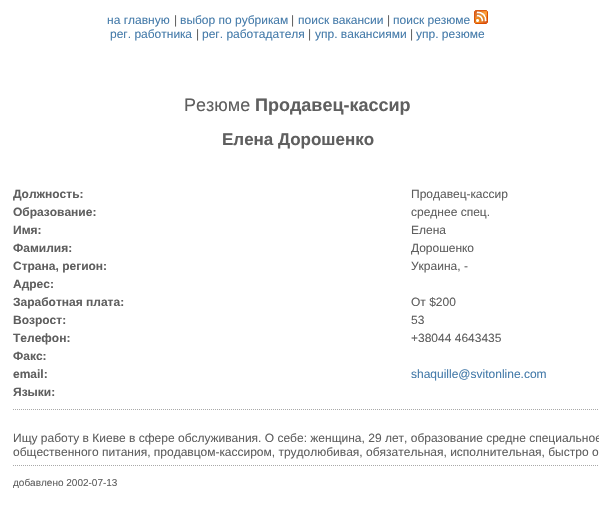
#include "include/core/SkBlurTypes.h"
#include "include/core/SkCanvas.h"
#include "include/core/SkData.h"
#include "include/core/SkFont.h"
#include "include/core/SkFontMgr.h"
#include "include/core/SkImage.h"
#include "include/core/SkMaskFilter.h"
#include "include/core/SkPaint.h"
#include "include/core/SkPathBuilder.h"
#include "include/core/SkTextBlob.h"
#include "include/effects/SkDashPathEffect.h"
#include "include/effects/SkGradientShader.h"
#include "include/utils/SkParsePath.h"

extern sk_sp<SkFontMgr> fontMgr;

void draw(SkCanvas* canvas) {
    SkPaint p;
    p.setAntiAlias(true);
    auto font = [&](const char* family, int weight, float size, bool italic = false) {
        SkFontStyle style(weight, SkFontStyle::kNormal_Width,
            italic ? SkFontStyle::kItalic_Slant : SkFontStyle::kUpright_Slant);
        SkFont result(fontMgr->matchFamilyStyle(family, style), size);
        result.setSubpixel(true);
        return result;
    };
    auto drawPhoto = [&](const char* path, float l, float t, float r, float b) {
        auto image = SkImages::DeferredFromEncodedData(SkData::MakeFromFileName(path));
        canvas->drawImageRect(image, SkRect::MakeLTRB(l, t, r, b), SkSamplingOptions());
    };
    canvas->clear(0xFFFFFFFF);
    auto font1 = font("Liberation Sans", 400, 12);
    p.setColor(0xFF457BAA);
    canvas->drawString("на главную", 107, 24, font1, p);
    p.setColor(0xFF5F5F5F);
    canvas->drawString("|", 174, 24, font1, p);
    p.setColor(0xFF457BAA);
    canvas->drawString("выбор по рубрикам", 180, 24, font1, p);
    p.setColor(0xFF5F5F5F);
    canvas->drawString("|", 291, 24, font1, p);
    p.setColor(0xFF457BAA);
    canvas->drawString("поиск вакансии", 298, 24, font1, p);
    p.setColor(0xFF5F5F5F);
    canvas->drawString("|", 387, 24, font1, p);
    p.setColor(0xFF457BAA);
    canvas->drawString("поиск резюме", 393, 24, font1, p);
    drawPhoto("media/1.png", 474, 10, 488, 24);
    canvas->drawString("рег. работника", 110, 38, font1, p);
    p.setColor(0xFF5F5F5F);
    canvas->drawString("|", 196, 38, font1, p);
    p.setColor(0xFF457BAA);
    canvas->drawString("рег. работадателя", 202, 38, font1, p);
    p.setColor(0xFF5F5F5F);
    canvas->drawString("|", 308, 38, font1, p);
    p.setColor(0xFF457BAA);
    canvas->drawString("упр. вакансиями", 315, 38, font1, p);
    p.setColor(0xFF5F5F5F);
    canvas->drawString("|", 410, 38, font1, p);
    p.setColor(0xFF457BAA);
    canvas->drawString("упр. резюме", 416, 38, font1, p);
    auto font2 = font("Liberation Sans", 400, 18);
    p.setColor(0xFF5F5F5F);
    canvas->drawString("Резюме", 184, 111, font2, p);
    auto font3 = font("Liberation Sans", 700, 18);
    canvas->drawString("Продавец-кассир", 255, 111, font3, p);
    auto font4 = font("Liberation Sans", 700, 17);
    canvas->drawString("Елена Дорошенко", 222, 145, font4, p);
    auto font5 = font("Liberation Sans", 700, 12);
    canvas->drawString("Должность:", 13, 198, font5, p);
    canvas->drawString("Продавец-кассир", 411, 198, font1, p);
    canvas->drawString("Образование:", 13, 216, font5, p);
    canvas->drawString("среднее спец.", 411, 216, font1, p);
    canvas->drawString("Имя:", 13, 234, font5, p);
    canvas->drawString("Елена", 411, 234, font1, p);
    canvas->drawString("Фамилия:", 13, 252, font5, p);
    canvas->drawString("Дорошенко", 411, 252, font1, p);
    canvas->drawString("Страна, регион:", 13, 270, font5, p);
    canvas->drawString("Украина, -", 411, 270, font1, p);
    canvas->drawString("Адрес:", 13, 288, font5, p);
    canvas->drawString("Заработная плата:", 13, 306, font5, p);
    canvas->drawString("От $200", 411, 306, font1, p);
    canvas->drawString("Возрост:", 13, 324, font5, p);
    canvas->drawString("53", 411, 324, font1, p);
    canvas->drawString("Телефон:", 13, 342, font5, p);
    canvas->drawString("+38044 4643435", 411, 342, font1, p);
    canvas->drawString("Факс:", 13, 360, font5, p);
    canvas->drawString("email:", 13, 378, font5, p);
    p.setColor(0xFF457BAA);
    canvas->drawString("shaquille@svitonline.com", 411, 378, font1, p);
    p.setColor(0xFF5F5F5F);
    canvas->drawString("Языки:", 13, 396, font5, p);
    p.setStyle(SkPaint::kStroke_Style);
    p.setStrokeWidth(1);
    p.setColor(0xFFA9A9A9);
    p.setPathEffect(SkDashPathEffect::Make({{1, 1}}, 0));
    canvas->drawPath(SkPathBuilder().moveTo(13, 409.5f).lineTo(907, 409.5f).detach(), p);
    p.setPathEffect(nullptr);
    p.setStyle(SkPaint::kFill_Style);
    p.setColor(0xFF5F5F5F);
    canvas->drawString("Ищу работу в Киеве в сфере обслуживания. О себе: женщина, 29 лет, образование средне специальное", 13, 442, font1, p);
    canvas->drawString("общественного питания, продавцом-кассиром, трудолюбивая, обязательная, исполнительная, быстро о", 13, 456, font1, p);
    p.setStyle(SkPaint::kStroke_Style);
    p.setColor(0xFFA9A9A9);
    p.setPathEffect(SkDashPathEffect::Make({{1, 1}}, 0));
    canvas->drawPath(SkPathBuilder().moveTo(13, 465.5f).lineTo(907, 465.5f).detach(), p);
    p.setPathEffect(nullptr);
    auto font6 = font("Liberation Sans", 400, 10);
    p.setStyle(SkPaint::kFill_Style);
    p.setColor(0xFF5F5F5F);
    canvas->drawString("добавлено 2002-07-13", 13, 486, font6, p);
}
